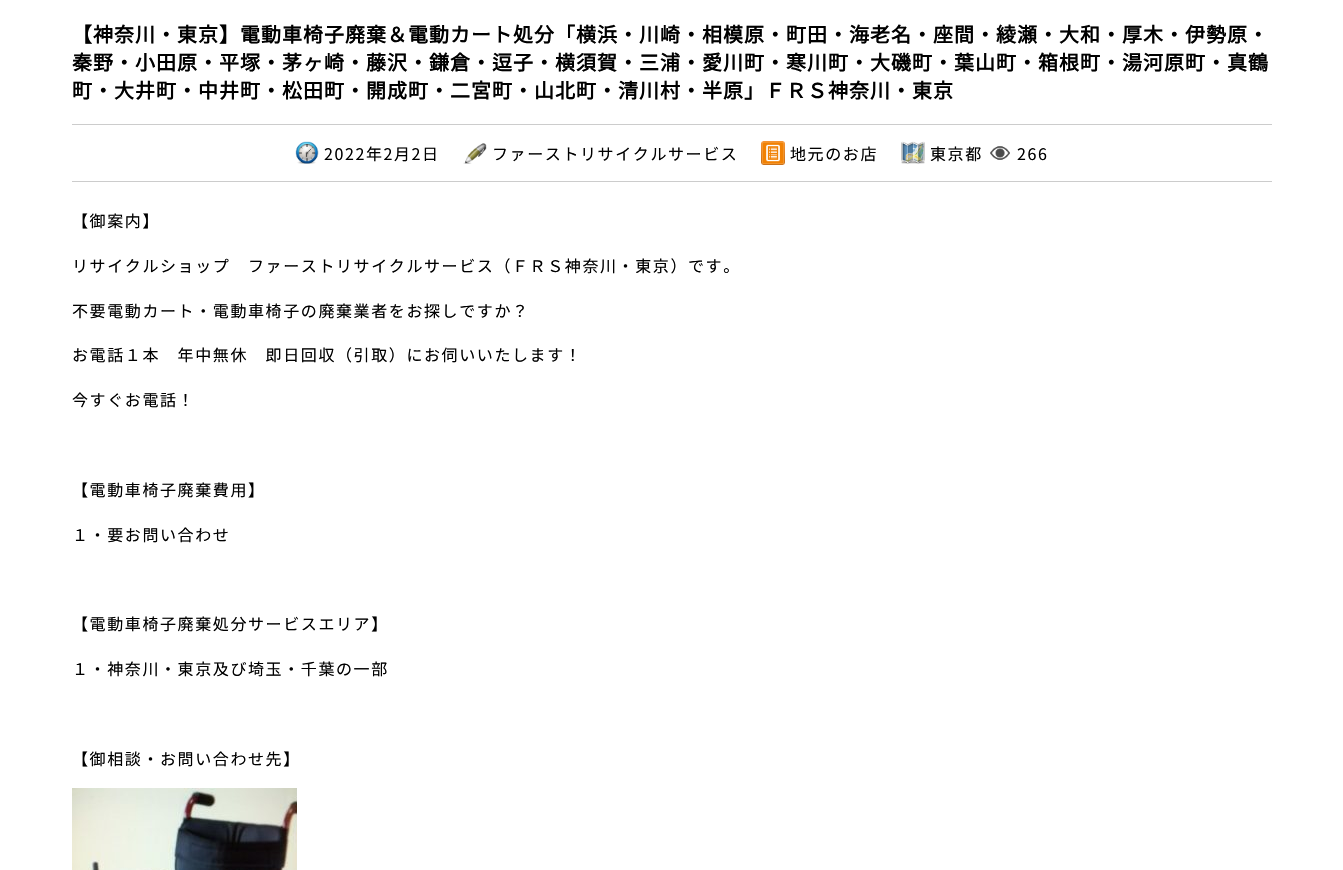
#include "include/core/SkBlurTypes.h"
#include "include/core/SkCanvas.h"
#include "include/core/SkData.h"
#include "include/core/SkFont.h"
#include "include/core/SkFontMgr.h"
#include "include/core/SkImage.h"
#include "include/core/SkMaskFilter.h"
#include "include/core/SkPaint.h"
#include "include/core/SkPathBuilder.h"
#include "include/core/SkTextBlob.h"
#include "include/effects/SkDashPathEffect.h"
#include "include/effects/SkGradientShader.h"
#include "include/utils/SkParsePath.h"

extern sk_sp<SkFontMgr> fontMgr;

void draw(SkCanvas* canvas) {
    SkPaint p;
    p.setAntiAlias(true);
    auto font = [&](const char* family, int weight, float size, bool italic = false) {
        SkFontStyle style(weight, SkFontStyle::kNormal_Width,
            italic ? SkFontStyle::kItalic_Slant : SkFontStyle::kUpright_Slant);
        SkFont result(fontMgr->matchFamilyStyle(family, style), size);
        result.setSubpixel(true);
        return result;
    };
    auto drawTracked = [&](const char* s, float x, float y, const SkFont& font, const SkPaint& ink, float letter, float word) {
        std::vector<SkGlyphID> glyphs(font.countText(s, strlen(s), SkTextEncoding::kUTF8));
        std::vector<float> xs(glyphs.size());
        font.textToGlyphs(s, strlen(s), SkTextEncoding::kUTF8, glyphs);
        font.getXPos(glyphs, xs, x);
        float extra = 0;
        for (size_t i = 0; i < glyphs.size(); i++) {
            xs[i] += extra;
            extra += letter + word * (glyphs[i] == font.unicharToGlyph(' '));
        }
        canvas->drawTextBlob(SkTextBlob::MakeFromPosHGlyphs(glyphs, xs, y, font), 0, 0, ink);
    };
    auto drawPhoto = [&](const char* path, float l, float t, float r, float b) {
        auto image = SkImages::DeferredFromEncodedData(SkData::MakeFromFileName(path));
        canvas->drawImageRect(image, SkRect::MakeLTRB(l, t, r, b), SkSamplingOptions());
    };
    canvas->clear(0xFFFFFFFF);
    auto font1 = font("Noto Sans JP", 700, 20);
    p.setColor(0xFF000000);
    {
        const struct { const char* s; float x, y; } items[] = {
            {"【神奈川・東京】電動車椅子廃棄＆電動カート処分「横浜・川崎・相模原・町田・海老名・座間・綾瀬・大和・厚木・伊勢原・", 72, 42},
            {"秦野・小田原・平塚・茅ヶ崎・藤沢・鎌倉・逗子・横須賀・三浦・愛川町・寒川町・大磯町・葉山町・箱根町・湯河原町・真鶴", 72, 70},
            {"町・大井町・中井町・松田町・開成町・二宮町・山北町・清川村・半原」ＦＲＳ神奈川・東京", 72, 98},
        };
        for (auto [s, x, y] : items) {
            drawTracked(s, x, y, font1, p, 1, 0);
        }
    }
    p.setColor(0xFFCCCCCC);
    canvas->drawRect(SkRect::MakeLTRB(72, 124, 1272, 125), p);
    canvas->drawRect(SkRect::MakeLTRB(72, 181, 1272, 182), p);
    drawPhoto("media/1.png", 295, 141, 319, 164);
    auto font2 = font("Noto Sans JP", 100, 16);
    p.setColor(0xFF000000);
    drawTracked("2022年2月2日", 324, 160, font2, p, 1.6f, 0);
    drawPhoto("media/2.png", 463, 143, 487, 164);
    drawTracked("ファーストリサイクルサービス", 492, 160, font2, p, 1.6f, 0);
    drawPhoto("media/3.png", 761, 141, 785, 165);
    drawTracked("地元のお店", 790, 160, font2, p, 1.6f, 0);
    drawPhoto("media/4.png", 901, 141, 925, 164);
    drawTracked("東京都", 930, 160, font2, p, 1.6f, 0);
    drawPhoto("media/5.png", 990, 146, 1010, 160);
    {
        const struct { const char* s; float x, y; } items[] = {
            {"266", 1017, 160},
            {"【御案内】", 72, 227},
            {"リサイクルショップ　ファーストリサイクルサービス（ＦＲＳ神奈川・東京）です。", 72, 272},
            {"不要電動カート・電動車椅子の廃棄業者をお探しですか？", 72, 317},
            {"お電話１本　年中無休　即日回収（引取）にお伺いいたします！", 72, 361},
            {"今すぐお電話！", 72, 406},
            {"【電動車椅子廃棄費用】", 72, 496},
            {"１・要お問い合わせ", 72, 541},
            {"【電動車椅子廃棄処分サービスエリア】", 72, 630},
            {"１・神奈川・東京及び埼玉・千葉の一部", 72, 675},
            {"【御相談・お問い合わせ先】", 72, 765},
        };
        for (auto [s, x, y] : items) {
            drawTracked(s, x, y, font2, p, 1.6f, 0);
        }
    }
    drawPhoto("media/6.png", 72, 788, 297, 870);
}
